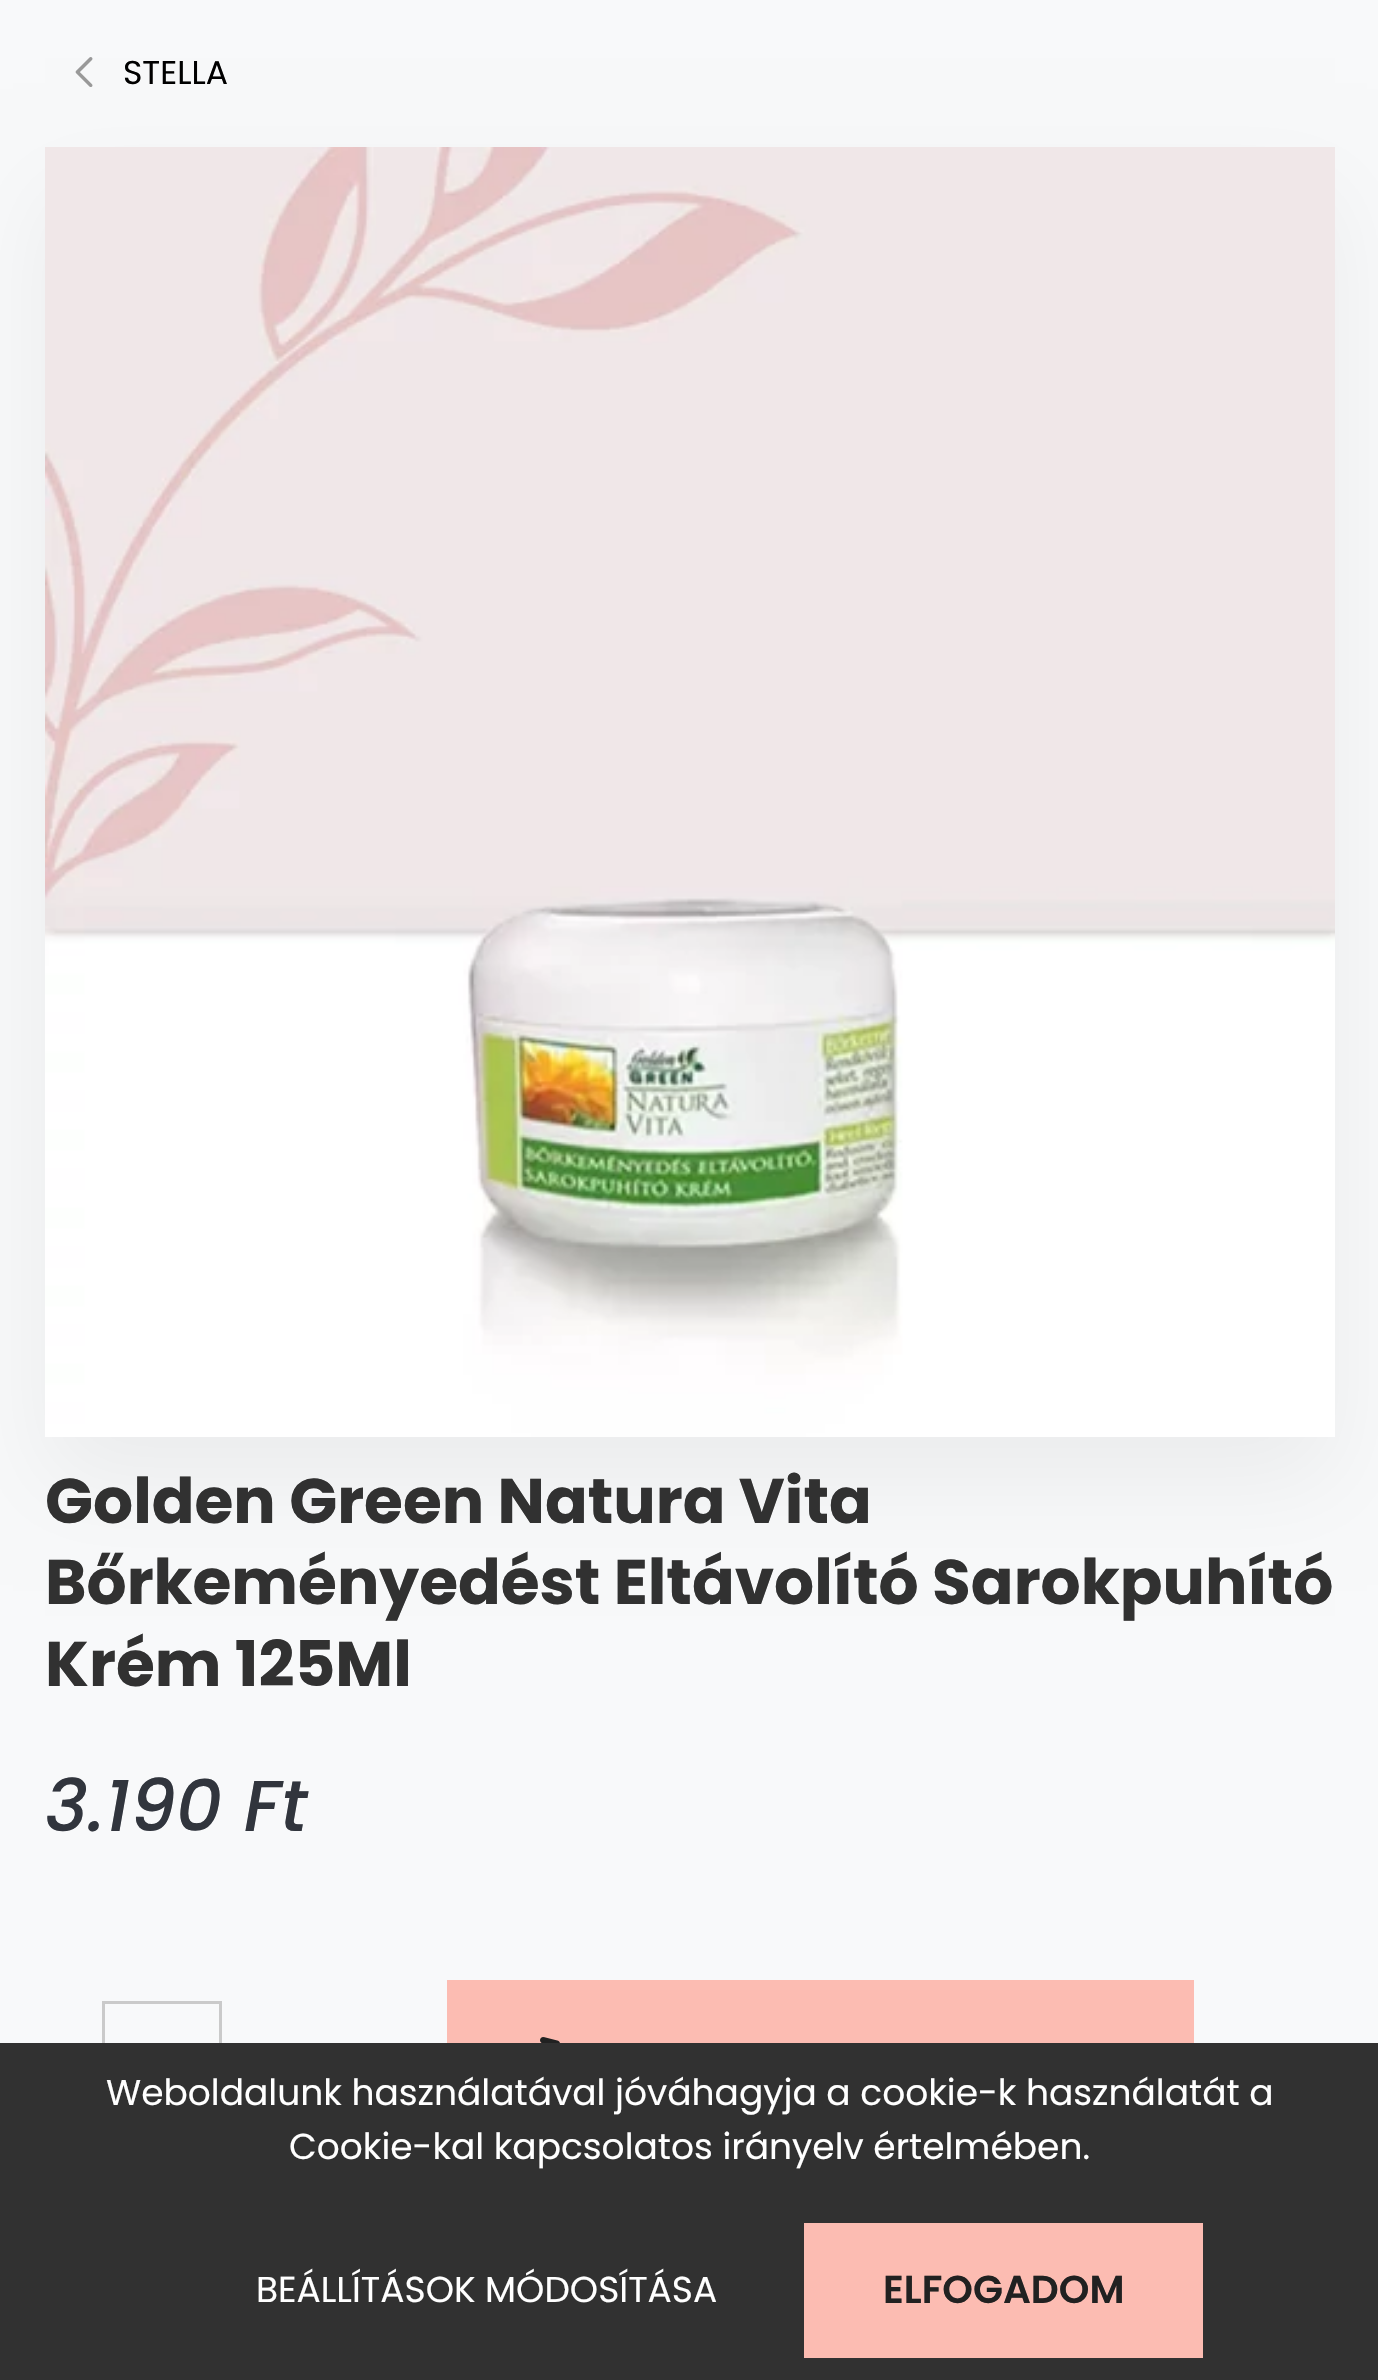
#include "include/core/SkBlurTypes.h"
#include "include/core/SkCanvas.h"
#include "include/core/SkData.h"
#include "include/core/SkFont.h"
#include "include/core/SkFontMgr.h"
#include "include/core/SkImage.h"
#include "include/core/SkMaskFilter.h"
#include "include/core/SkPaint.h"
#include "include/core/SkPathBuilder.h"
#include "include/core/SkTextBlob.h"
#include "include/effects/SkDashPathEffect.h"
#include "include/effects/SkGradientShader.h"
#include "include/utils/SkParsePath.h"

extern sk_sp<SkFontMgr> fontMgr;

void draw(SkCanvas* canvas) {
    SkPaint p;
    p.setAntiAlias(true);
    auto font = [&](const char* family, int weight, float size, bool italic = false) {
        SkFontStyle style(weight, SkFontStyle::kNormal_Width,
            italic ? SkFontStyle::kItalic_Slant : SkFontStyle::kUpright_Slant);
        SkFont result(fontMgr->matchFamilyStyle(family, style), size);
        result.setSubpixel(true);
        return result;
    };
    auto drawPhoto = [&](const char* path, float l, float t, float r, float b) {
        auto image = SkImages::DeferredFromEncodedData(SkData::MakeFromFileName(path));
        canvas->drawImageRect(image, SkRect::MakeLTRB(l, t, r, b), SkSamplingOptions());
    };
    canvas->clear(0xFFF8F9FA);
    drawPhoto("media/1.png", 75, 57, 93, 87);
    auto font1 = font("Poppins", 400, 33);
    p.setColor(0xFF000000);
    canvas->drawString("STELLA", 123, 84, font1, p);
    p.setColor(0x0D000000);
    p.setMaskFilter(SkMaskFilter::MakeBlur(kNormal_SkBlurStyle, 45));
    canvas->drawRect(SkRect::MakeLTRB(45, 192, 1335, 1482), p);
    p.setMaskFilter(nullptr);
    drawPhoto("media/2.png", 45, 147, 1335, 1437);
    auto font2 = font("Poppins", 700, 63);
    p.setColor(0xFF313131);
    {
        const struct { const char* s; float x, y; } items[] = {
            {"Golden Green Natura Vita", 45, 1523},
            {"Bőrkeményedést Eltávolító Sarokpuhító", 45, 1604},
            {"Krém 125Ml", 45, 1686},
        };
        for (auto [s, x, y] : items) {
            canvas->drawString(s, x, y, font2, p);
        }
    }
    auto font3 = font("Poppins", 500, 72, true);
    p.setColor(0xFF31353D);
    canvas->drawString("3.190 Ft", 45, 1831, font3, p);
    p.setStyle(SkPaint::kStroke_Style);
    p.setStrokeWidth(3);
    p.setColor(0xFFCACACA);
    canvas->drawRect(SkRect::MakeLTRB(103.5f, 2002.5f, 220.5f, 2131.5f), p);
    p.setStyle(SkPaint::kFill_Style);
    p.setColor(0xFFFCBCB2);
    canvas->drawRect(SkRect::MakeLTRB(447, 1980, 1194, 2043), p);
    drawPhoto("media/3.png", 540, 2037, 560, 2043);
    p.setColor(0xFF313131);
    canvas->drawRect(SkRect::MakeLTRB(0, 2043, 1378, 2380), p);
    auto font4 = font("Poppins", 400, 36);
    p.setColor(0xFFFFFFFF);
    {
        const struct { const char* s; float x, y; } items[] = {
            {"Weboldalunk használatával jóváhagyja a cookie-k használatát a", 106, 2105},
            {"Cookie-kal kapcsolatos irányelv értelmében.", 289, 2159},
            {"BEÁLLÍTÁSOK MÓDOSÍTÁSA", 256, 2302},
        };
        for (auto [s, x, y] : items) {
            canvas->drawString(s, x, y, font4, p);
        }
    }
    p.setColor(0xFFFCBCB2);
    canvas->drawRect(SkRect::MakeLTRB(804, 2223, 1203, 2358), p);
    auto font5 = font("Poppins", 600, 39);
    p.setColor(0xFF212121);
    canvas->drawString("ELFOGADOM", 883, 2303, font5, p);
}
